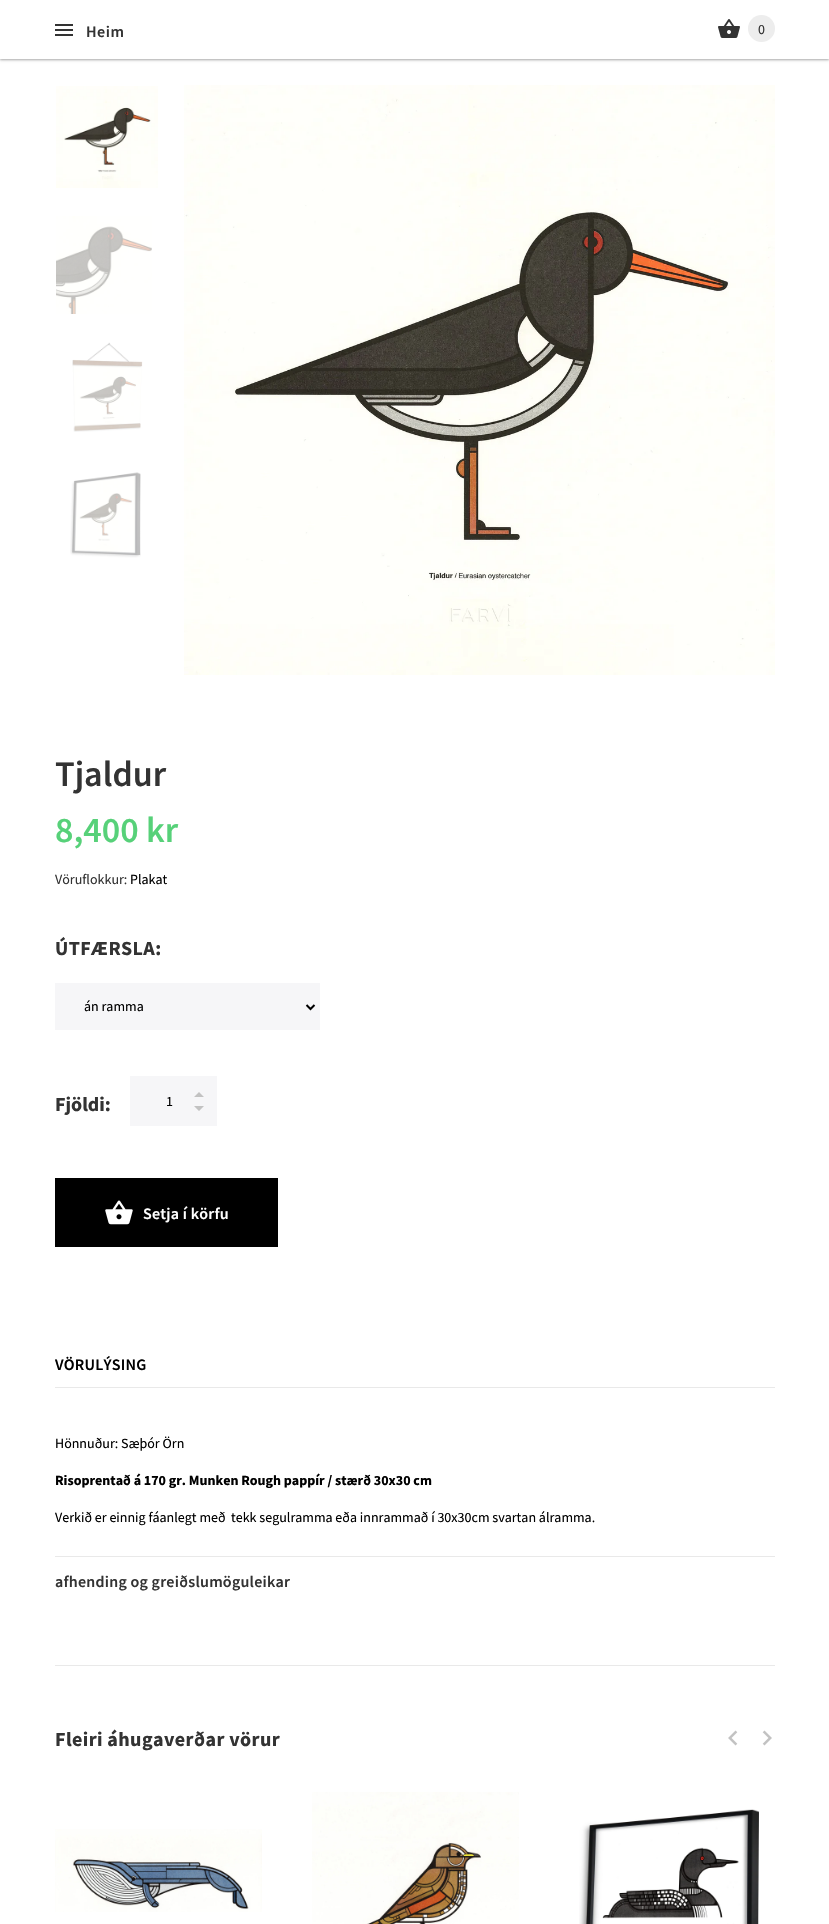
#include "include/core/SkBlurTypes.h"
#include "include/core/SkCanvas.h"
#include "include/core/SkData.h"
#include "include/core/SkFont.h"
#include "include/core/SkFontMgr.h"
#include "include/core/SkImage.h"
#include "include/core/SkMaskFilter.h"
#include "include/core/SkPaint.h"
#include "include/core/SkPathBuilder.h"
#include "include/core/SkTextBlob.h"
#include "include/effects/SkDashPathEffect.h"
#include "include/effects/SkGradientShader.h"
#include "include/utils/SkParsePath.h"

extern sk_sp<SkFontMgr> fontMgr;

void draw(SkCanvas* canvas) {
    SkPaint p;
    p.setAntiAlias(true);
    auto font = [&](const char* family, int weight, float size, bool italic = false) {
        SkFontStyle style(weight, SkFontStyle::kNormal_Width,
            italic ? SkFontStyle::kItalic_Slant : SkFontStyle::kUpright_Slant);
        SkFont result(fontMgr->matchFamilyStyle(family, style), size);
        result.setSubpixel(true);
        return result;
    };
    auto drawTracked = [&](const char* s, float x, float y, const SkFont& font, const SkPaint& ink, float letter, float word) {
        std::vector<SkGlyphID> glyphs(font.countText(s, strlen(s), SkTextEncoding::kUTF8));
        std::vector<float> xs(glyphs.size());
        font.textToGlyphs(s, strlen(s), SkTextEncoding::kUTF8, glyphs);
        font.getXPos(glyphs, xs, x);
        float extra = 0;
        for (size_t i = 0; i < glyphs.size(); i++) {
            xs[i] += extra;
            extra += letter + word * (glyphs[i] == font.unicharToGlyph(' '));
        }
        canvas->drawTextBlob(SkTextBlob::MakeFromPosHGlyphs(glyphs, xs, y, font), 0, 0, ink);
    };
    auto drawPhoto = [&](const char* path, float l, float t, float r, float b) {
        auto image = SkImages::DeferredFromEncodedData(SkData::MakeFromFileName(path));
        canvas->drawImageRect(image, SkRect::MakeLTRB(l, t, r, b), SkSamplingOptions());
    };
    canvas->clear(0xFFFFFFFF);
    p.setColor(0x3D000000);
    p.setMaskFilter(SkMaskFilter::MakeBlur(kNormal_SkBlurStyle, 1));
    canvas->drawRect(SkRect::MakeLTRB(0, 1, 829, 60), p);
    p.setMaskFilter(nullptr);
    p.setColor(0x1F000000);
    p.setMaskFilter(SkMaskFilter::MakeBlur(kNormal_SkBlurStyle, 1.5f));
    canvas->drawRect(SkRect::MakeLTRB(0, 1, 829, 60), p);
    p.setMaskFilter(nullptr);
    p.setColor(0xFFFFFFFF);
    canvas->drawRect(SkRect::MakeLTRB(0, 0, 829, 59), p);
    p.setColor(0xFF333333);
    canvas->drawRect(SkRect::MakeLTRB(55, 24, 73, 26), p);
    auto font1 = font("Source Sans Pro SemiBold", 600, 16);
    drawTracked("Heim", 86, 37, font1, p, 0.5f, 0);
    canvas->drawRect(SkRect::MakeLTRB(55, 29, 73, 31), p);
    canvas->drawRect(SkRect::MakeLTRB(55, 34, 73, 36), p);
    drawPhoto("media/1.png", 718, 19, 740, 38);
    p.setColor(0xFFEDEDED);
    canvas->drawCircle(761.5f, 28.5f, 13.5f, p);
    auto font2 = font("Source Sans Pro", 400, 14);
    p.setColor(0xFF333333);
    canvas->drawString("0", 758, 34, font2, p);
    drawPhoto("media/2.png", 56, 86, 158, 188);
    drawPhoto("media/3.png", 56, 216, 152, 314);
    drawPhoto("media/4.png", 72, 342, 143, 432);
    drawPhoto("media/5.png", 70, 472, 141, 558);
    drawPhoto("media/6.png", 184, 85, 775, 675);
    auto font3 = font("Source Sans Pro SemiBold", 600, 36);
    canvas->drawString("Tjaldur", 55, 786, font3, p);
    p.setColor(0xFF57D179);
    canvas->drawString("8,400 kr", 55, 842, font3, p);
    p.setColor(0xFF333333);
    canvas->drawString("Vöruflokkur:", 55, 884, font2, p);
    p.setColor(0xFF000000);
    canvas->drawString("Plakat", 130, 884, font2, p);
    auto font4 = font("Source Sans Pro", 700, 20);
    p.setColor(0xFF333333);
    drawTracked("ÚTFÆRSLA:", 55, 955, font4, p, 0.4f, 0);
    p.setColor(0xFFF6F6F8);
    canvas->drawRect(SkRect::MakeLTRB(55, 983, 320, 1030), p);
    p.setStyle(SkPaint::kStroke_Style);
    p.setStrokeWidth(2);
    p.setColor(0xFF000000);
    canvas->drawPath(SkPathBuilder().moveTo(306.5f, 1005).lineTo(310.5f, 1009).lineTo(314.5f, 1005).detach(), p);
    p.setStyle(SkPaint::kFill_Style);
    canvas->drawString("án ramma", 84, 1011, font2, p);
    p.setColor(0xFF333333);
    canvas->drawString("Fjöldi:", 55, 1111, font4, p);
    p.setColor(0xFFF6F6F8);
    canvas->drawRect(SkRect::MakeLTRB(130, 1076, 217, 1126), p);
    p.setColor(0xFF000000);
    canvas->drawString("1", 166, 1106, font2, p);
    p.setColor(0xFFC2C2C2);
    canvas->drawPath(SkPathBuilder().moveTo(194, 1106).lineTo(204, 1106).lineTo(199, 1111).close().moveTo(194, 1097).lineTo(199, 1092).lineTo(204, 1097).close().detach(), p);
    p.setColor(0xFF000000);
    canvas->drawRect(SkRect::MakeLTRB(55, 1178, 278, 1247), p);
    drawPhoto("media/7.png", 105, 1200, 133, 1225);
    p.setColor(0xFFFFFFFF);
    drawTracked("Setja í körfu", 143, 1219, font1, p, 0.25f, 0);
    p.setColor(0xFF000000);
    drawTracked("VÖRULÝSING", 55, 1370, font1, p, 0.25f, 0);
    p.setColor(0xFFE9E9E9);
    canvas->drawRect(SkRect::MakeLTRB(55, 1387, 775, 1388), p);
    p.setColor(0xFF000000);
    canvas->drawString("Hönnuður: Sæþór Örn", 55, 1448, font2, p);
    auto font5 = font("Source Sans Pro", 700, 14);
    canvas->drawString("Risoprentað á 170 gr. Munken Rough pappír / stærð 30x30 cm", 55, 1485, font5, p);
    canvas->drawString("Verkið er einnig fáanlegt með", 55, 1522, font2, p);
    canvas->drawString("tekk segulramma eða innrammað í 30x30cm svartan álramma.", 231, 1522, font2, p);
    p.setColor(0xFFE9E9E9);
    canvas->drawRect(SkRect::MakeLTRB(55, 1556, 775, 1557), p);
    p.setColor(0xFF333333);
    drawTracked("afhending og greiðslumöguleikar", 55, 1587, font1, p, 0.25f, 0);
    p.setColor(0xFFE9E9E9);
    canvas->drawRect(SkRect::MakeLTRB(55, 1665, 775, 1666), p);
    p.setColor(0xFF333333);
    drawTracked("Fleiri áhugaverðar vörur", 55, 1746, font4, p, 0.4f, 0);
    drawPhoto("media/8.png", 728, 1730, 738, 1746);
    drawPhoto("media/9.png", 762, 1730, 772, 1746);
    drawPhoto("media/10.png", 55, 1829, 262, 1912);
    drawPhoto("media/11.png", 312, 1792, 519, 1924);
    drawPhoto("media/12.png", 579, 1809, 759, 1924);
}
